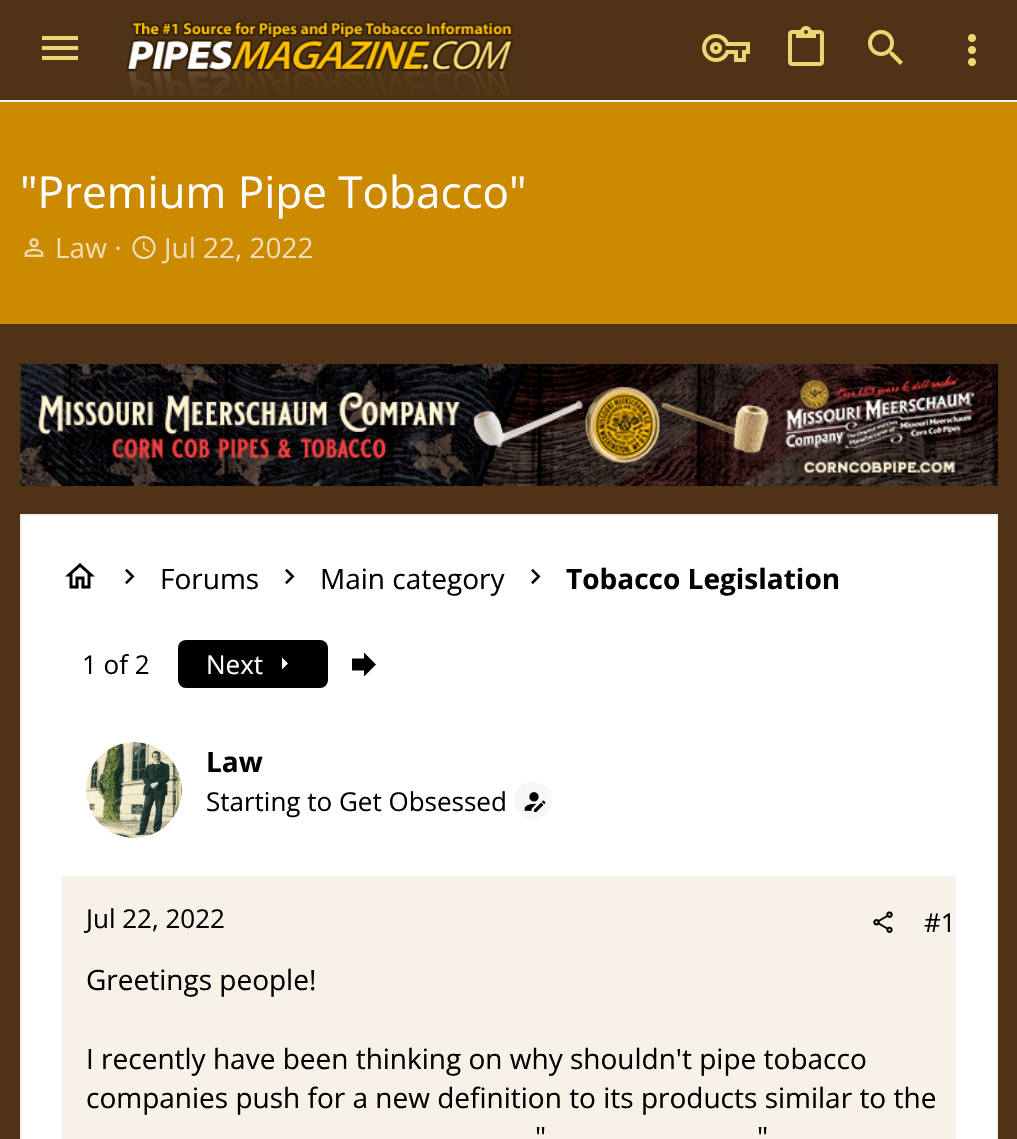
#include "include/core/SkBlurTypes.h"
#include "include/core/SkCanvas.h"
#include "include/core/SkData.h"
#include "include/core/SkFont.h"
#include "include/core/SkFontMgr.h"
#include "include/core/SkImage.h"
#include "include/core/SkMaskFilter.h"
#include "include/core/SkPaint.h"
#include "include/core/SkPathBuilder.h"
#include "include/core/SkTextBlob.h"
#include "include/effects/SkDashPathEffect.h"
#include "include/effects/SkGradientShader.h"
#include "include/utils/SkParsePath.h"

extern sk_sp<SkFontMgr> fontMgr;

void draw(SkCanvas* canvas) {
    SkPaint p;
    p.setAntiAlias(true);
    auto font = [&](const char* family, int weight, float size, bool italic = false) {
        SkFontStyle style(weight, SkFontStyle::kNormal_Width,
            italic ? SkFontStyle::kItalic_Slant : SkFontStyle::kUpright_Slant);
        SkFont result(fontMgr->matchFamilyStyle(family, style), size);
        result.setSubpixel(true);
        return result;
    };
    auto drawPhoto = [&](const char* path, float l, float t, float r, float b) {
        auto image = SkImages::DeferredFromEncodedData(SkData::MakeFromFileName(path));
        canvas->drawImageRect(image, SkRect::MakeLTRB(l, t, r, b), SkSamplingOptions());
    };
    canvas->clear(0xFF503316);
    p.setColor(0xFFF2F2F2);
    canvas->drawRect(SkRect::MakeLTRB(0, 100, 1017, 102), p);
    p.setColor(0xFFEED472);
    canvas->drawPath(SkPathBuilder().moveTo(42, 36).lineTo(78, 36).lineTo(78, 40).lineTo(42, 40).close().moveTo(42, 46).lineTo(78, 46).lineTo(78, 50).lineTo(42, 50).close().moveTo(42, 56).lineTo(78, 56).lineTo(78, 60).lineTo(42, 60).close().detach(), p);
    drawPhoto("media/1.png", 126, 20, 514, 96);
    drawPhoto("media/2.png", 702, 34, 750, 62);
    drawPhoto("media/3.png", 788, 26, 824, 66);
    drawPhoto("media/4.png", 868, 30, 903, 65);
    drawPhoto("media/5.png", 968, 34, 976, 66);
    p.setColor(0xFFCB8A00);
    canvas->drawRect(SkRect::MakeLTRB(0, 102, 1017, 324), p);
    auto font1 = font("Open Sans", 400, 44);
    p.setColor(0xFFFFFFFF);
    canvas->drawString("\"Premium Pipe Tobacco\"", 20, 208, font1, p);
    drawPhoto("media/6.png", 24, 238, 44, 257);
    auto font2 = font("Open Sans", 400, 28);
    p.setColor(0xFFEFDCB3);
    canvas->drawString("Law ·", 55, 258, font2, p);
    drawPhoto("media/7.png", 132, 235, 156, 260);
    canvas->drawString("Jul 22, 2022", 164, 258, font2, p);
    drawPhoto("media/8.png", 20, 364, 998, 486);
    p.setColor(0xFFFFFFFF);
    canvas->drawRect(SkRect::MakeLTRB(21, 515, 997, 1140), p);
    p.setStyle(SkPaint::kStroke_Style);
    p.setStrokeWidth(2);
    p.setColor(0xFFF2F2F2);
    canvas->drawRect(SkRect::MakeLTRB(21, 515, 997, 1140), p);
    drawPhoto("media/9.png", 65, 563, 95, 589);
    drawPhoto("media/10.png", 125, 568, 135, 584);
    p.setStyle(SkPaint::kFill_Style);
    p.setColor(0xFF000000);
    canvas->drawString("Forums", 160, 589, font2, p);
    drawPhoto("media/10.png", 285, 568, 295, 584);
    canvas->drawString("Main category", 320, 589, font2, p);
    drawPhoto("media/10.png", 531, 568, 541, 584);
    auto font3 = font("Open Sans", 700, 28);
    canvas->drawString("Tobacco Legislation", 566, 589, font3, p);
    auto font4 = font("Open Sans", 400, 26);
    canvas->drawString("1 of 2", 82, 674, font4, p);
    canvas->drawRoundRect(SkRect::MakeLTRB(178, 640, 328, 688), 8, 8, p);
    p.setColor(0xFFFFFFFF);
    canvas->drawString("Next", 206, 674, font4, p);
    canvas->drawPath(SkPathBuilder().moveTo(282, 669.5f).lineTo(288, 663.5f).lineTo(282, 657.5f).close().detach(), p);
    p.setColor(0xFF000000);
    canvas->drawPath(SkPathBuilder().moveTo(364, 658.5f).lineTo(364, 652.5f).lineTo(376, 664.5f).lineTo(364, 676.5f).lineTo(364, 670.5f).lineTo(352, 670.5f).lineTo(352, 658.5f).close().detach(), p);
    p.setColor(0xFFF7F1E7);
    canvas->drawRect(SkRect::MakeLTRB(62, 876, 956, 1139), p);
    canvas->drawCircle(134, 790, 48, p);
    drawPhoto("media/11.png", 86, 742, 182, 838);
    p.setColor(0xFF000000);
    canvas->drawString("Law", 206, 772, font3, p);
    canvas->drawString("Starting to Get Obsessed", 206, 811, font4, p);
    p.setColor(0xFFF7F7F7);
    canvas->drawCircle(533, 801, 19, p);
    drawPhoto("media/12.png", 524, 792, 546, 812);
    p.setColor(0xFF000000);
    canvas->drawString("Jul 22, 2022", 86, 928, font4, p);
    drawPhoto("media/13.png", 873, 911, 893, 933);
    canvas->drawString("#1", 924, 932, font4, p);
    {
        const struct { const char* s; float x, y; } items[] = {
            {"Greetings people!", 86, 990},
            {"I recently have been thinking on why shouldn't pipe tobacco", 86, 1069},
            {"companies push for a new definition to its products similar to the", 86, 1108},
            {"\"", 535, 1147},
            {"\"", 757, 1147},
        };
        for (auto [s, x, y] : items) {
            canvas->drawString(s, x, y, font2, p);
        }
    }
}
